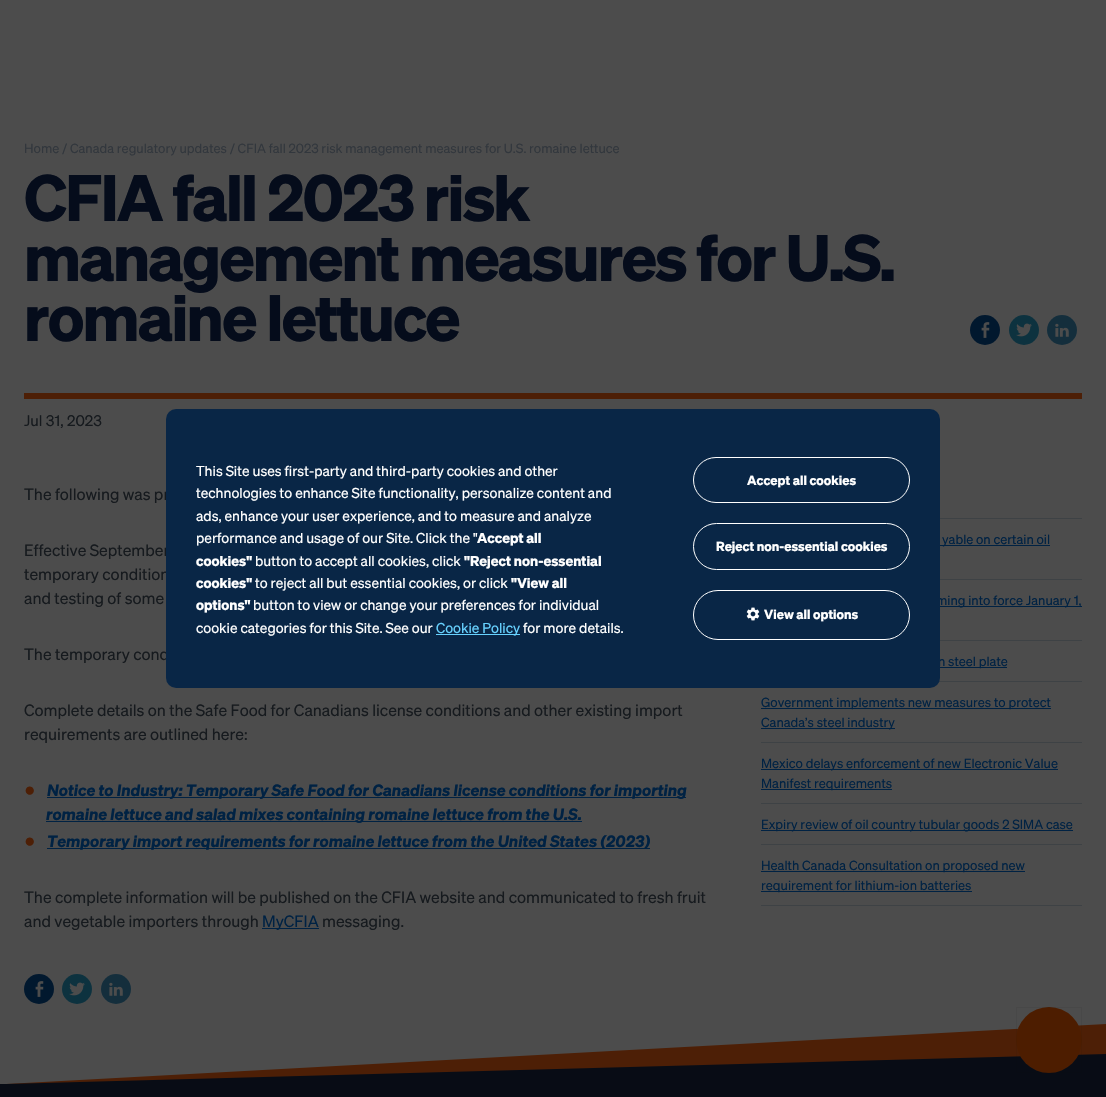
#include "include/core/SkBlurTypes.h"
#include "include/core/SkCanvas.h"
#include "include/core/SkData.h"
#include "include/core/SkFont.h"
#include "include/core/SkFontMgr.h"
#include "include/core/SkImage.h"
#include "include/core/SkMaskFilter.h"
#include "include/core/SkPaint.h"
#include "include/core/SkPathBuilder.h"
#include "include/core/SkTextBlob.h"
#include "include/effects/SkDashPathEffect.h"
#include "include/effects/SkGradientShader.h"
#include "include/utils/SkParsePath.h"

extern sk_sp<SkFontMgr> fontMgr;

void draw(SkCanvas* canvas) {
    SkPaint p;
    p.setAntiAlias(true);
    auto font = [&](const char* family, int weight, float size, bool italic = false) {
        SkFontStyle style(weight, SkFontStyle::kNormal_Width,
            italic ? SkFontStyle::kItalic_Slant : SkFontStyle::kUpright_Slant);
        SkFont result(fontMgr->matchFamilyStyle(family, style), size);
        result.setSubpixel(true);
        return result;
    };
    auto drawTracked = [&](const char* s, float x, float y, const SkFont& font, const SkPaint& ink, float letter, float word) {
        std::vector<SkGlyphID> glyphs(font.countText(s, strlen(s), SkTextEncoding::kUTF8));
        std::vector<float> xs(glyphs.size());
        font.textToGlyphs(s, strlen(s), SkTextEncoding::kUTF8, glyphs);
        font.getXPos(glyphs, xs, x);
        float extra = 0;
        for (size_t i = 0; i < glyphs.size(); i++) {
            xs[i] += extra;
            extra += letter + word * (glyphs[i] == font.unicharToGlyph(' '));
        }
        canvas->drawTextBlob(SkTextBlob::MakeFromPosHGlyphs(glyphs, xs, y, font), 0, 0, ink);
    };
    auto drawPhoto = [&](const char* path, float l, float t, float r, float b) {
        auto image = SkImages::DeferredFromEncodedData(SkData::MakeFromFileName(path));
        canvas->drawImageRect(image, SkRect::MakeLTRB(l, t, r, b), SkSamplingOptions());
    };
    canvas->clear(0xFF080C15);
    p.setColor(0xFF4C4C4C);
    canvas->drawRect(SkRect::MakeLTRB(0, 0, 1106, 1084), p);
    p.setColor(0xFF4D1F06);
    canvas->drawRect(SkRect::MakeLTRB(24, 393, 1082, 399), p);
    auto font1 = font("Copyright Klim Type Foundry", 400, 13);
    p.setColor(0xFF32373D);
    canvas->drawString("Home / Canada regulatory updates / CFIA fall 2023 risk management measures for U.S. romaine lettuce", 24, 153, font1, p);
    auto font2 = font("Copyright Klim Type Foundry", 700, 64);
    p.setColor(0xFF050C1B);
    {
        const struct { const char* s; float x, y; } items[] = {
            {"CFIA fall 2023 risk", 24, 221},
            {"management measures for U.S.", 24, 281},
            {"romaine lettuce", 24, 341},
        };
        for (auto [s, x, y] : items) {
            drawTracked(s, x, y, font2, p, -1.9f, 0);
        }
    }
    p.setColor(0xFF01182E);
    canvas->drawCircle(985, 330, 15, p);
    drawPhoto("media/1.png", 981, 322, 990, 338);
    p.setColor(0xFF0D323F);
    canvas->drawCircle(1024, 330, 15, p);
    drawPhoto("media/2.png", 1016, 323, 1032, 337);
    p.setColor(0xFF142E3C);
    canvas->drawCircle(1062, 330, 15, p);
    drawPhoto("media/3.png", 1055, 323, 1069, 337);
    auto font3 = font("Copyright Klim Type Foundry", 400, 15);
    p.setColor(0xFF161A1E);
    drawTracked("Jul 31, 2023", 24, 426, font3, p, 0.1f, 0);
    auto font4 = font("Copyright Klim Type Foundry", 400, 16);
    {
        const struct { const char* s; float x, y; } items[] = {
            {"The following was pr", 24, 500},
            {"Effective September", 24, 556},
            {"temporary condition", 24, 580},
            {"and testing of some", 24, 604},
            {"The temporary cond", 24, 660},
            {"Complete details on the Safe Food for Canadians license conditions and other existing import", 24, 716},
            {"requirements are outlined here:", 24, 740},
        };
        for (auto [s, x, y] : items) {
            canvas->drawString(s, x, y, font4, p);
        }
    }
    auto font5 = font("Liberation Sans", 700, 19);
    p.setColor(0xFF4D1F06);
    canvas->drawString("●", 24, 796, font5, p);
    p.setColor(0xFF002243);
    canvas->drawRect(SkRect::MakeLTRB(47, 797, 686, 798), p);
    auto font6 = font("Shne", 700, 16, true);
    canvas->drawString("Notice to Industry: Temporary Safe Food for Canadians license conditions for importing", 47, 796, font6, p);
    canvas->drawRect(SkRect::MakeLTRB(46, 821, 582, 822), p);
    canvas->drawString("romaine lettuce and salad mixes containing romaine lettuce from the U.S.", 46, 820, font6, p);
    p.setColor(0xFF4D1F06);
    canvas->drawString("●", 24, 847, font5, p);
    p.setColor(0xFF002243);
    canvas->drawRect(SkRect::MakeLTRB(47, 848, 650, 849), p);
    canvas->drawString("Temporary import requirements for romaine lettuce from the United States (2023)", 47, 847, font6, p);
    p.setColor(0xFF161A1E);
    canvas->drawString("The complete information will be published on the CFIA website and communicated to fresh fruit", 24, 903, font4, p);
    canvas->drawString("and vegetable importers through", 24, 927, font4, p);
    p.setColor(0xFF002243);
    canvas->drawRect(SkRect::MakeLTRB(262, 928, 319, 929), p);
    canvas->drawString("MyCFIA", 262, 927, font4, p);
    p.setColor(0xFF161A1E);
    canvas->drawString("messaging.", 322, 927, font4, p);
    p.setColor(0xFF01182E);
    canvas->drawCircle(39, 989, 15, p);
    drawPhoto("media/1.png", 35, 981, 44, 997);
    p.setColor(0xFF0D323F);
    canvas->drawCircle(77, 989, 15, p);
    drawPhoto("media/2.png", 69, 982, 85, 996);
    p.setColor(0xFF142E3C);
    canvas->drawCircle(116, 989, 15, p);
    drawPhoto("media/3.png", 109, 982, 123, 996);
    {
        const struct { float l, t, r, b; SkColor color; } items[] = {
            {940, 518, 1082, 519, 0xFF3E4245},
            {940, 579, 1082, 580, 0xFF3E4245},
            {940, 545, 1050, 546, 0xFF002243},
        };
        for (auto [l, t, r, b, color] : items) {
            p.setColor(color);
            canvas->drawRect(SkRect::MakeLTRB(l, t, r, b), p);
        }
    }
    canvas->drawString("yable on certain oil", 942, 544, font1, p);
    p.setColor(0xFF3E4245);
    canvas->drawRect(SkRect::MakeLTRB(940, 640, 1082, 641), p);
    p.setColor(0xFF002243);
    canvas->drawRect(SkRect::MakeLTRB(940, 606, 1082, 607), p);
    canvas->drawString("ming into force January 1,", 936, 605, font1, p);
    p.setColor(0xFF3E4245);
    canvas->drawRect(SkRect::MakeLTRB(939, 681, 1082, 682), p);
    p.setColor(0xFF002243);
    canvas->drawRect(SkRect::MakeLTRB(940, 667, 1007, 668), p);
    canvas->drawString("n steel plate", 938, 666, font1, p);
    p.setColor(0xFF3E4245);
    canvas->drawRect(SkRect::MakeLTRB(761, 742, 1082, 743), p);
    p.setColor(0xFF002243);
    canvas->drawRect(SkRect::MakeLTRB(761, 708, 1051, 709), p);
    canvas->drawString("Government implements new measures to protect", 761, 707, font1, p);
    canvas->drawRect(SkRect::MakeLTRB(761, 728, 895, 729), p);
    canvas->drawString("Canada’s steel industry", 761, 727, font1, p);
    p.setColor(0xFF3E4245);
    canvas->drawRect(SkRect::MakeLTRB(761, 803, 1082, 804), p);
    p.setColor(0xFF002243);
    canvas->drawRect(SkRect::MakeLTRB(761, 769, 1058, 770), p);
    canvas->drawString("Mexico delays enforcement of new Electronic Value", 761, 768, font1, p);
    canvas->drawRect(SkRect::MakeLTRB(761, 789, 892, 790), p);
    canvas->drawString("Manifest requirements", 761, 788, font1, p);
    p.setColor(0xFF3E4245);
    canvas->drawRect(SkRect::MakeLTRB(761, 844, 1082, 845), p);
    p.setColor(0xFF002243);
    canvas->drawRect(SkRect::MakeLTRB(761, 830, 1073, 831), p);
    canvas->drawString("Expiry review of oil country tubular goods 2 SIMA case", 761, 829, font1, p);
    p.setColor(0xFF3E4245);
    canvas->drawRect(SkRect::MakeLTRB(761, 905, 1082, 906), p);
    p.setColor(0xFF002243);
    canvas->drawRect(SkRect::MakeLTRB(761, 871, 1025, 872), p);
    canvas->drawString("Health Canada Consultation on proposed new", 761, 870, font1, p);
    canvas->drawRect(SkRect::MakeLTRB(761, 891, 972, 892), p);
    canvas->drawString("requirement for lithium-ion batteries", 761, 890, font1, p);
    p.setColor(0xFF4D1F06);
    canvas->drawPath(SkPathBuilder().moveTo(1106, 1024).lineTo(6, 1084).lineTo(1106, 1084).close().detach(), p);
    p.setColor(0xFF080C15);
    canvas->drawPath(SkPathBuilder().moveTo(1106, 1054).lineTo(6, 1084).lineTo(1106, 1084).close().detach(), p);
    p.setColor(0xFF092646);
    canvas->drawRoundRect(SkRect::MakeLTRB(166, 409, 940, 688), 10, 10, p);
    auto font7 = font("Copyright Klim Type Foundry", 400, 14);
    p.setColor(0xFFFFFFFF);
    {
        const struct { const char* s; float x, y; } items[] = {
            {"This Site uses first-party and third-party cookies and other", 196, 476},
            {"technologies to enhance Site functionality, personalize content and", 196, 498},
            {"ads, enhance your user experience, and to measure and analyze", 196, 521},
            {"performance and usage of our Site. Click the \"", 196, 543},
        };
        for (auto [s, x, y] : items) {
            canvas->drawString(s, x, y, font7, p);
        }
    }
    auto font8 = font("Copyright Klim Type Foundry", 700, 14);
    canvas->drawString("Accept all", 477, 543, font8, p);
    canvas->drawString("cookies\"", 196, 566, font8, p);
    canvas->drawString("button to accept all cookies, click", 255, 566, font7, p);
    canvas->drawString("\"Reject non-essential", 464, 566, font8, p);
    canvas->drawString("cookies\"", 196, 588, font8, p);
    canvas->drawString("to reject all but essential cookies, or click", 255, 588, font7, p);
    canvas->drawString("\"View all", 511, 588, font8, p);
    canvas->drawString("options\"", 196, 610, font8, p);
    canvas->drawString("button to view or change your preferences for individual", 253, 610, font7, p);
    canvas->drawString("cookie categories for this Site. See our", 196, 633, font7, p);
    p.setColor(0xFF67D2FF);
    canvas->drawRect(SkRect::MakeLTRB(436, 634, 520, 635), p);
    canvas->drawString("Cookie Policy", 436, 633, font7, p);
    p.setColor(0xFFFFFFFF);
    canvas->drawString("for more details.", 523, 633, font7, p);
    p.setStyle(SkPaint::kStroke_Style);
    p.setStrokeWidth(1);
    canvas->drawRoundRect(SkRect::MakeLTRB(693.5f, 457.5f, 909.5f, 502.5f), 22.5f, 22.5f, p);
    auto font9 = font("Copyright Klim Type Foundry", 700, 13);
    p.setStyle(SkPaint::kFill_Style);
    canvas->drawString("Accept all cookies", 747, 485, font9, p);
    p.setStyle(SkPaint::kStroke_Style);
    canvas->drawRoundRect(SkRect::MakeLTRB(693.5f, 523.5f, 909.5f, 569.5f), 23, 23, p);
    p.setStyle(SkPaint::kFill_Style);
    canvas->drawString("Reject non-essential cookies", 716, 551, font9, p);
    p.setStyle(SkPaint::kStroke_Style);
    canvas->drawRoundRect(SkRect::MakeLTRB(693.5f, 590.5f, 909.5f, 639.5f), 24.5f, 24.5f, p);
    drawPhoto("media/4.png", 746, 607, 760, 621);
    p.setStyle(SkPaint::kFill_Style);
    canvas->drawString("View all options", 764, 619, font9, p);
    p.setColor(0xFF4D1D00);
    canvas->drawCircle(1049, 1040, 33, p);
    p.setStyle(SkPaint::kStroke_Style);
    p.setColor(0x0D000000);
    canvas->drawRect(SkRect::MakeLTRB(1016.5f, 1007.5f, 1081.5f, 1072.5f), p);
}
